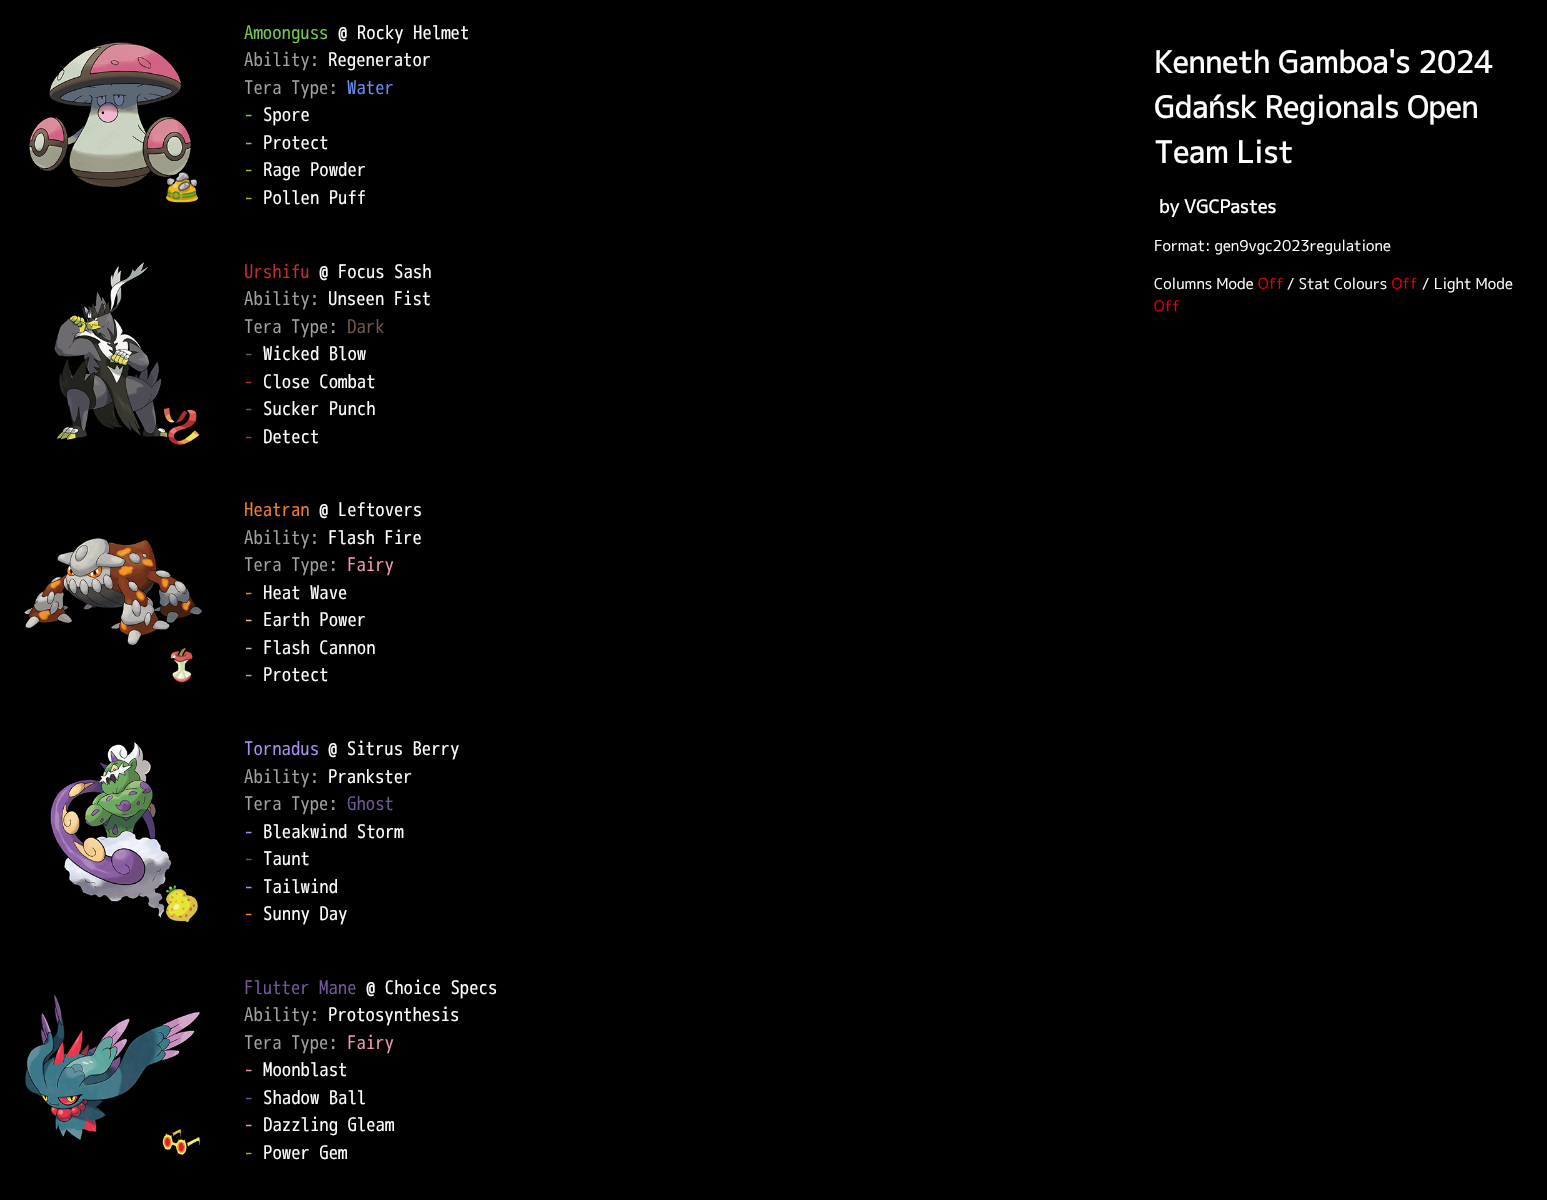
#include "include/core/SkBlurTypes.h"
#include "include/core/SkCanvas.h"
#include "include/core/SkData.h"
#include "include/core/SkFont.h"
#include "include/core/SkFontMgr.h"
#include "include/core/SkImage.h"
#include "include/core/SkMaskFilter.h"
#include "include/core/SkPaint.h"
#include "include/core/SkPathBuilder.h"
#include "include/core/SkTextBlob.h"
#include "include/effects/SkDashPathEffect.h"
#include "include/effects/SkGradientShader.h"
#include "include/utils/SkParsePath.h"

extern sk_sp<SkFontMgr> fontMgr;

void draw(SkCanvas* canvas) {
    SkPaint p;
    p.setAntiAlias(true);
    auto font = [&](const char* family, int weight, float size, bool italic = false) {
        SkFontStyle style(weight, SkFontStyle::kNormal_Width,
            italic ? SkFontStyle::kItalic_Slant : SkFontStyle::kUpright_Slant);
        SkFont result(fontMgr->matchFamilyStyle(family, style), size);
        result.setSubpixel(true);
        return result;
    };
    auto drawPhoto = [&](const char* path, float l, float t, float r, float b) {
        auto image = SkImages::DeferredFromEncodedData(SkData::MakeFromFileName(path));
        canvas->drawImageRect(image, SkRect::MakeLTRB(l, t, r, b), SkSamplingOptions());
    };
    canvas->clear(0xFF000000);
    drawPhoto("media/1.png", 29, 42, 191, 188);
    drawPhoto("media/2.png", 165, 171, 198, 203);
    auto font1 = font("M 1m", 400, 18.75f);
    p.setColor(0xFF78C850);
    canvas->drawString("Amoonguss", 244, 39, font1, p);
    p.setColor(0xFFFFFFFF);
    canvas->drawString("@ Rocky Helmet", 338, 39, font1, p);
    p.setColor(0xFFA0A0A0);
    canvas->drawString("Ability:", 244, 66, font1, p);
    p.setColor(0xFFFFFFFF);
    canvas->drawString("Regenerator", 328, 66, font1, p);
    p.setColor(0xFFA0A0A0);
    canvas->drawString("Tera Type:", 244, 94, font1, p);
    p.setColor(0xFF6890F0);
    canvas->drawString("Water", 347, 94, font1, p);
    p.setColor(0xFF78C850);
    canvas->drawString("-", 244, 121, font1, p);
    p.setColor(0xFFFFFFFF);
    canvas->drawString("Spore", 263, 121, font1, p);
    p.setColor(0xFFA8A878);
    canvas->drawString("-", 244, 149, font1, p);
    p.setColor(0xFFFFFFFF);
    canvas->drawString("Protect", 263, 149, font1, p);
    p.setColor(0xFFA8B820);
    canvas->drawString("-", 244, 176, font1, p);
    p.setColor(0xFFFFFFFF);
    canvas->drawString("Rage Powder", 263, 176, font1, p);
    p.setColor(0xFFA8B820);
    canvas->drawString("-", 244, 204, font1, p);
    p.setColor(0xFFFFFFFF);
    canvas->drawString("Pollen Puff", 263, 204, font1, p);
    auto font2 = font("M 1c", 700, 30);
    {
        const struct { const char* s; float x, y; } items[] = {
            {"Kenneth Gamboa's 2024", 1154, 73},
            {"Gdańsk Regionals Open", 1154, 118},
            {"Team List", 1154, 163},
        };
        for (auto [s, x, y] : items) {
            canvas->drawString(s, x, y, font2, p);
        }
    }
    auto font3 = font("M 1c", 700, 18);
    canvas->drawString("by VGCPastes", 1159, 213, font3, p);
    auto font4 = font("M 1c", 400, 15);
    canvas->drawString("Format: gen9vgc2023regulatione", 1154, 251, font4, p);
    canvas->drawString("Columns Mode", 1154, 289, font4, p);
    drawPhoto("media/3.png", 1258, 277, 1283, 289);
    canvas->drawString("/ Stat Colours", 1287, 289, font4, p);
    drawPhoto("media/4.png", 1392, 277, 1417, 289);
    canvas->drawString("/ Light Mode", 1422, 289, font4, p);
    drawPhoto("media/5.png", 1154, 300, 1179, 312);
    drawPhoto("media/6.png", 54, 262, 168, 440);
    drawPhoto("media/7.png", 163, 407, 200, 445);
    p.setColor(0xFFC03028);
    canvas->drawString("Urshifu", 244, 278, font1, p);
    p.setColor(0xFFFFFFFF);
    canvas->drawString("@ Focus Sash", 319, 278, font1, p);
    p.setColor(0xFFA0A0A0);
    canvas->drawString("Ability:", 244, 305, font1, p);
    p.setColor(0xFFFFFFFF);
    canvas->drawString("Unseen Fist", 328, 305, font1, p);
    p.setColor(0xFFA0A0A0);
    canvas->drawString("Tera Type:", 244, 333, font1, p);
    p.setColor(0xFF705848);
    canvas->drawString("Dark", 347, 333, font1, p);
    canvas->drawString("-", 244, 360, font1, p);
    p.setColor(0xFFFFFFFF);
    canvas->drawString("Wicked Blow", 263, 360, font1, p);
    p.setColor(0xFFC03028);
    canvas->drawString("-", 244, 388, font1, p);
    p.setColor(0xFFFFFFFF);
    canvas->drawString("Close Combat", 263, 388, font1, p);
    p.setColor(0xFF705848);
    canvas->drawString("-", 244, 415, font1, p);
    p.setColor(0xFFFFFFFF);
    canvas->drawString("Sucker Punch", 263, 415, font1, p);
    p.setColor(0xFFC03028);
    canvas->drawString("-", 244, 443, font1, p);
    p.setColor(0xFFFFFFFF);
    canvas->drawString("Detect", 263, 443, font1, p);
    drawPhoto("media/8.png", 24, 538, 202, 646);
    drawPhoto("media/9.png", 170, 648, 193, 683);
    p.setColor(0xFFF08030);
    canvas->drawString("Heatran", 244, 516, font1, p);
    p.setColor(0xFFFFFFFF);
    canvas->drawString("@ Leftovers", 319, 516, font1, p);
    p.setColor(0xFFA0A0A0);
    canvas->drawString("Ability:", 244, 544, font1, p);
    p.setColor(0xFFFFFFFF);
    canvas->drawString("Flash Fire", 328, 544, font1, p);
    p.setColor(0xFFA0A0A0);
    canvas->drawString("Tera Type:", 244, 571, font1, p);
    p.setColor(0xFFEE99AC);
    canvas->drawString("Fairy", 347, 571, font1, p);
    p.setColor(0xFFF08030);
    canvas->drawString("-", 244, 599, font1, p);
    p.setColor(0xFFFFFFFF);
    canvas->drawString("Heat Wave", 263, 599, font1, p);
    p.setColor(0xFFE0C068);
    canvas->drawString("-", 244, 626, font1, p);
    p.setColor(0xFFFFFFFF);
    canvas->drawString("Earth Power", 263, 626, font1, p);
    p.setColor(0xFFB8B8D0);
    canvas->drawString("-", 244, 654, font1, p);
    p.setColor(0xFFFFFFFF);
    canvas->drawString("Flash Cannon", 263, 654, font1, p);
    p.setColor(0xFFA8A878);
    canvas->drawString("-", 244, 681, font1, p);
    p.setColor(0xFFFFFFFF);
    canvas->drawString("Protect", 263, 681, font1, p);
    drawPhoto("media/10.png", 50, 742, 172, 918);
    drawPhoto("media/11.png", 165, 885, 198, 923);
    p.setColor(0xFFA890F0);
    canvas->drawString("Tornadus", 244, 755, font1, p);
    p.setColor(0xFFFFFFFF);
    canvas->drawString("@ Sitrus Berry", 328, 755, font1, p);
    p.setColor(0xFFA0A0A0);
    canvas->drawString("Ability:", 244, 783, font1, p);
    p.setColor(0xFFFFFFFF);
    canvas->drawString("Prankster", 328, 783, font1, p);
    p.setColor(0xFFA0A0A0);
    canvas->drawString("Tera Type:", 244, 810, font1, p);
    p.setColor(0xFF705898);
    canvas->drawString("Ghost", 347, 810, font1, p);
    p.setColor(0xFFA890F0);
    canvas->drawString("-", 244, 838, font1, p);
    p.setColor(0xFFFFFFFF);
    canvas->drawString("Bleakwind Storm", 263, 838, font1, p);
    p.setColor(0xFF705848);
    canvas->drawString("-", 244, 865, font1, p);
    p.setColor(0xFFFFFFFF);
    canvas->drawString("Taunt", 263, 865, font1, p);
    p.setColor(0xFFA890F0);
    canvas->drawString("-", 244, 893, font1, p);
    p.setColor(0xFFFFFFFF);
    canvas->drawString("Tailwind", 263, 893, font1, p);
    p.setColor(0xFFF08030);
    canvas->drawString("-", 244, 920, font1, p);
    p.setColor(0xFFFFFFFF);
    canvas->drawString("Sunny Day", 263, 920, font1, p);
    drawPhoto("media/12.png", 24, 994, 200, 1141);
    drawPhoto("media/13.png", 162, 1129, 200, 1156);
    p.setColor(0xFF705898);
    canvas->drawString("Flutter Mane", 244, 994, font1, p);
    p.setColor(0xFFFFFFFF);
    canvas->drawString("@ Choice Specs", 366, 994, font1, p);
    p.setColor(0xFFA0A0A0);
    canvas->drawString("Ability:", 244, 1021, font1, p);
    p.setColor(0xFFFFFFFF);
    canvas->drawString("Protosynthesis", 328, 1021, font1, p);
    p.setColor(0xFFA0A0A0);
    canvas->drawString("Tera Type:", 244, 1049, font1, p);
    p.setColor(0xFFEE99AC);
    canvas->drawString("Fairy", 347, 1049, font1, p);
    canvas->drawString("-", 244, 1076, font1, p);
    p.setColor(0xFFFFFFFF);
    canvas->drawString("Moonblast", 263, 1076, font1, p);
    p.setColor(0xFF705898);
    canvas->drawString("-", 244, 1104, font1, p);
    p.setColor(0xFFFFFFFF);
    canvas->drawString("Shadow Ball", 263, 1104, font1, p);
    p.setColor(0xFFEE99AC);
    canvas->drawString("-", 244, 1131, font1, p);
    p.setColor(0xFFFFFFFF);
    canvas->drawString("Dazzling Gleam", 263, 1131, font1, p);
    p.setColor(0xFFB8A038);
    canvas->drawString("-", 244, 1159, font1, p);
    p.setColor(0xFFFFFFFF);
    canvas->drawString("Power Gem", 263, 1159, font1, p);
}
